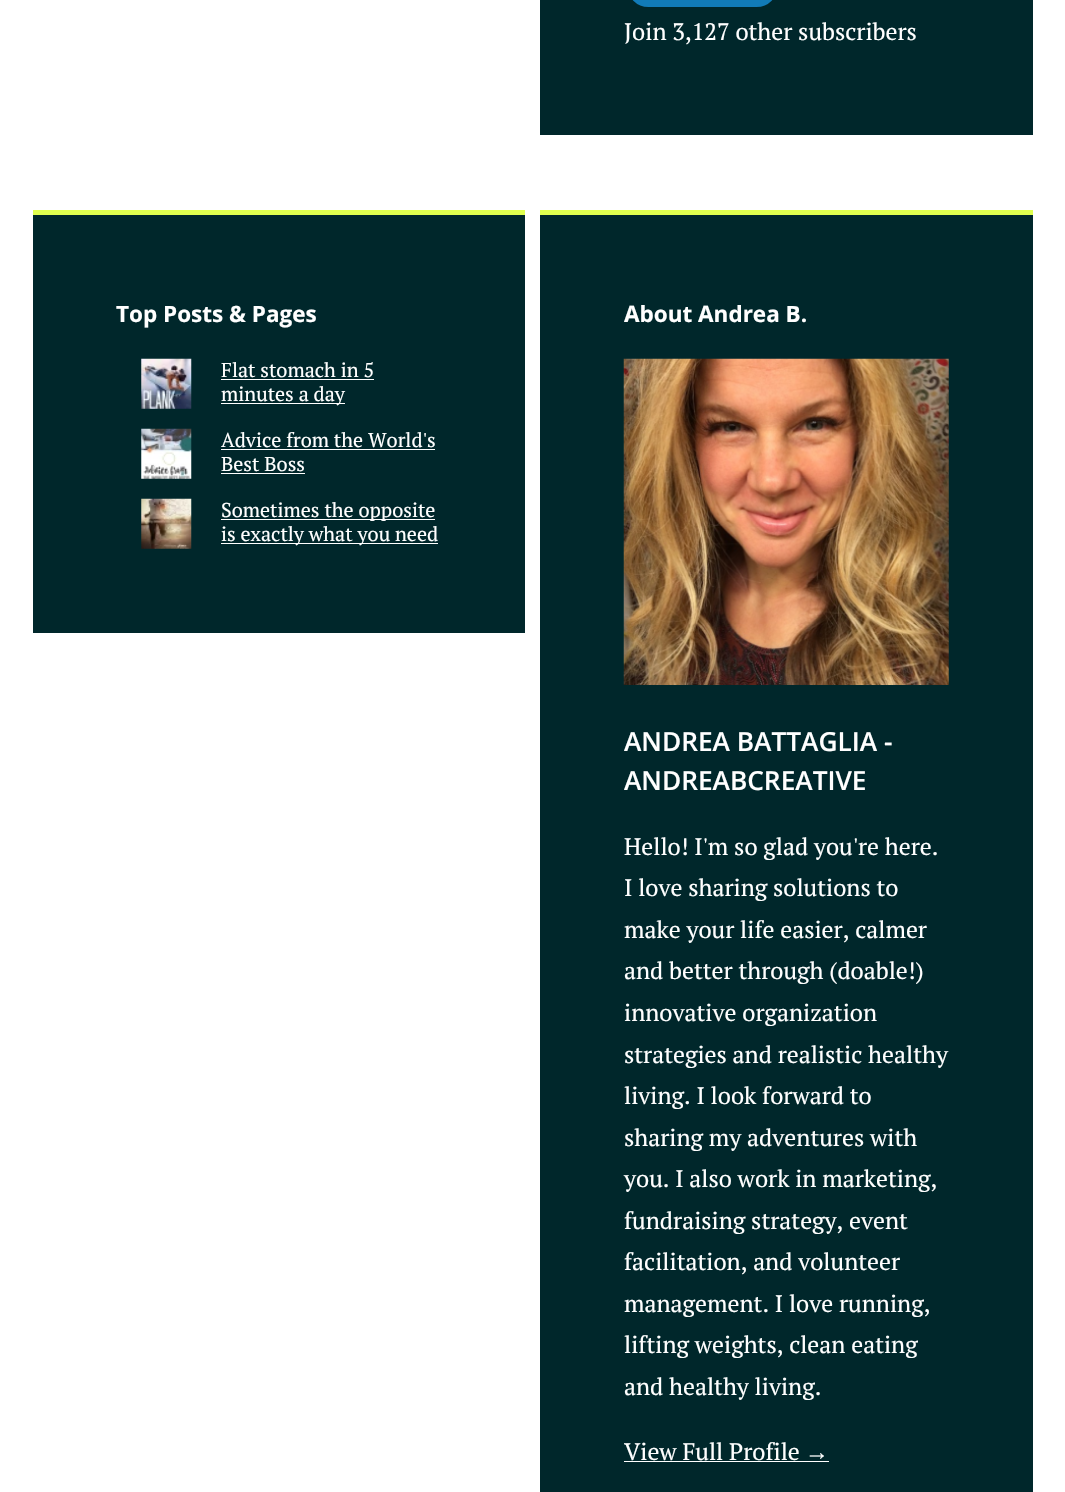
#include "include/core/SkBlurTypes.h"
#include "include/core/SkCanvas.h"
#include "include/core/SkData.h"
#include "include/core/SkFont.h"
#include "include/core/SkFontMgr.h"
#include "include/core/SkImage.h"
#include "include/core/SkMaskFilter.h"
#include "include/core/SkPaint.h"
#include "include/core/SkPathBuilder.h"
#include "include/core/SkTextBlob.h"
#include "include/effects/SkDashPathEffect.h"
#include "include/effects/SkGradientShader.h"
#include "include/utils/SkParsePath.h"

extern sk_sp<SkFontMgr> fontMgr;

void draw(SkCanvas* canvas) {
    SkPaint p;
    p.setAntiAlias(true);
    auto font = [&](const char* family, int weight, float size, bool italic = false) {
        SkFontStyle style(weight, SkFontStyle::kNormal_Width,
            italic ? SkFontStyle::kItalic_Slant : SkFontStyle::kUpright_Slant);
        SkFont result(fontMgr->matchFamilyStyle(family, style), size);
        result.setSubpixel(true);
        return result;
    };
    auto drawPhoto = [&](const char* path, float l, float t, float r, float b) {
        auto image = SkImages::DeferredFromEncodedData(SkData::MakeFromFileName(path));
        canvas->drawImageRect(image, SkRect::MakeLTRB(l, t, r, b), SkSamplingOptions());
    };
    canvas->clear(0xFFFFFFFF);
    p.setColor(0xFF00272B);
    canvas->drawRect(SkRect::MakeLTRB(540, 0, 1033, 135), p);
    p.setColor(0xFF117BB8);
    canvas->drawRoundRect(SkRect::MakeLTRB(625.5f, -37.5f, 779.5f, 8.5f), 34.5f, 34.5f, p);
    p.setStyle(SkPaint::kStroke_Style);
    p.setStrokeWidth(3);
    p.setColor(0xFF00272B);
    canvas->drawRoundRect(SkRect::MakeLTRB(625.5f, -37.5f, 779.5f, 8.5f), 34.5f, 34.5f, p);
    auto font1 = font("PT Serif", 400, 23.75f);
    p.setStyle(SkPaint::kFill_Style);
    p.setColor(0xFFFFFFFF);
    canvas->drawString("Join 3,127 other subscribers", 624, 40, font1, p);
    p.setColor(0xFF00272B);
    canvas->drawRect(SkRect::MakeLTRB(33, 215, 525, 633), p);
    p.setColor(0xFFE0FF4F);
    canvas->drawRect(SkRect::MakeLTRB(33, 210, 525, 215), p);
    auto font2 = font("Open Sans", 700, 22.5f);
    p.setColor(0xFFFFFFFF);
    canvas->drawString("Top Posts & Pages", 116, 322, font2, p);
    drawPhoto("media/1.png", 141, 358, 192, 409);
    auto font3 = font("PT Serif", 400, 20);
    canvas->drawString("Flat stomach in 5", 221, 377, font3, p);
    canvas->drawRect(SkRect::MakeLTRB(221, 379, 374, 380), p);
    canvas->drawRect(SkRect::MakeLTRB(221, 403, 345, 404), p);
    canvas->drawString("minutes a day", 221, 401, font3, p);
    drawPhoto("media/2.png", 141, 428, 192, 479);
    canvas->drawString("Advice from the World's", 221, 447, font3, p);
    canvas->drawRect(SkRect::MakeLTRB(221, 449, 435, 450), p);
    canvas->drawString("Best Boss", 221, 471, font3, p);
    canvas->drawRect(SkRect::MakeLTRB(221, 473, 305, 474), p);
    drawPhoto("media/3.png", 141, 498, 192, 549);
    canvas->drawRect(SkRect::MakeLTRB(221, 519, 435, 520), p);
    canvas->drawString("Sometimes the opposite", 221, 517, font3, p);
    canvas->drawRect(SkRect::MakeLTRB(221, 543, 438, 544), p);
    canvas->drawString("is exactly what you need", 221, 541, font3, p);
    p.setColor(0xFF00272B);
    canvas->drawRect(SkRect::MakeLTRB(540, 215, 1033, 1492), p);
    p.setColor(0xFFE0FF4F);
    canvas->drawRect(SkRect::MakeLTRB(540, 210, 1033, 215), p);
    p.setColor(0xFFFFFFFF);
    canvas->drawString("About Andrea B.", 624, 322, font2, p);
    drawPhoto("media/4.png", 623, 358, 949, 685);
    auto font4 = font("Open Sans", 600, 26.25f);
    canvas->drawString("ANDREA BATTAGLIA -", 624, 751, font4, p);
    canvas->drawString("ANDREABCREATIVE", 624, 790, font4, p);
    {
        const struct { const char* s; float x, y; } items[] = {
            {"Hello! I'm so glad you're here.", 624, 855},
            {"I love sharing solutions to", 624, 896},
            {"make your life easier, calmer", 624, 938},
            {"and better through (doable!)", 624, 979},
            {"innovative organization", 624, 1021},
            {"strategies and realistic healthy", 624, 1063},
            {"living. I look forward to", 624, 1104},
            {"sharing my adventures with", 624, 1146},
            {"you. I also work in marketing,", 624, 1187},
            {"fundraising strategy, event", 624, 1229},
            {"facilitation, and volunteer", 624, 1270},
            {"management. I love running,", 624, 1312},
            {"lifting weights, clean eating", 624, 1353},
            {"and healthy living.", 624, 1395},
            {"View Full Profile", 624, 1460},
        };
        for (auto [s, x, y] : items) {
            canvas->drawString(s, x, y, font1, p);
        }
    }
    auto font5 = font("Liberation Serif", 400, 23.75f);
    canvas->drawString("→", 805, 1460, font5, p);
    canvas->drawRect(SkRect::MakeLTRB(624, 1461, 829, 1462), p);
}
